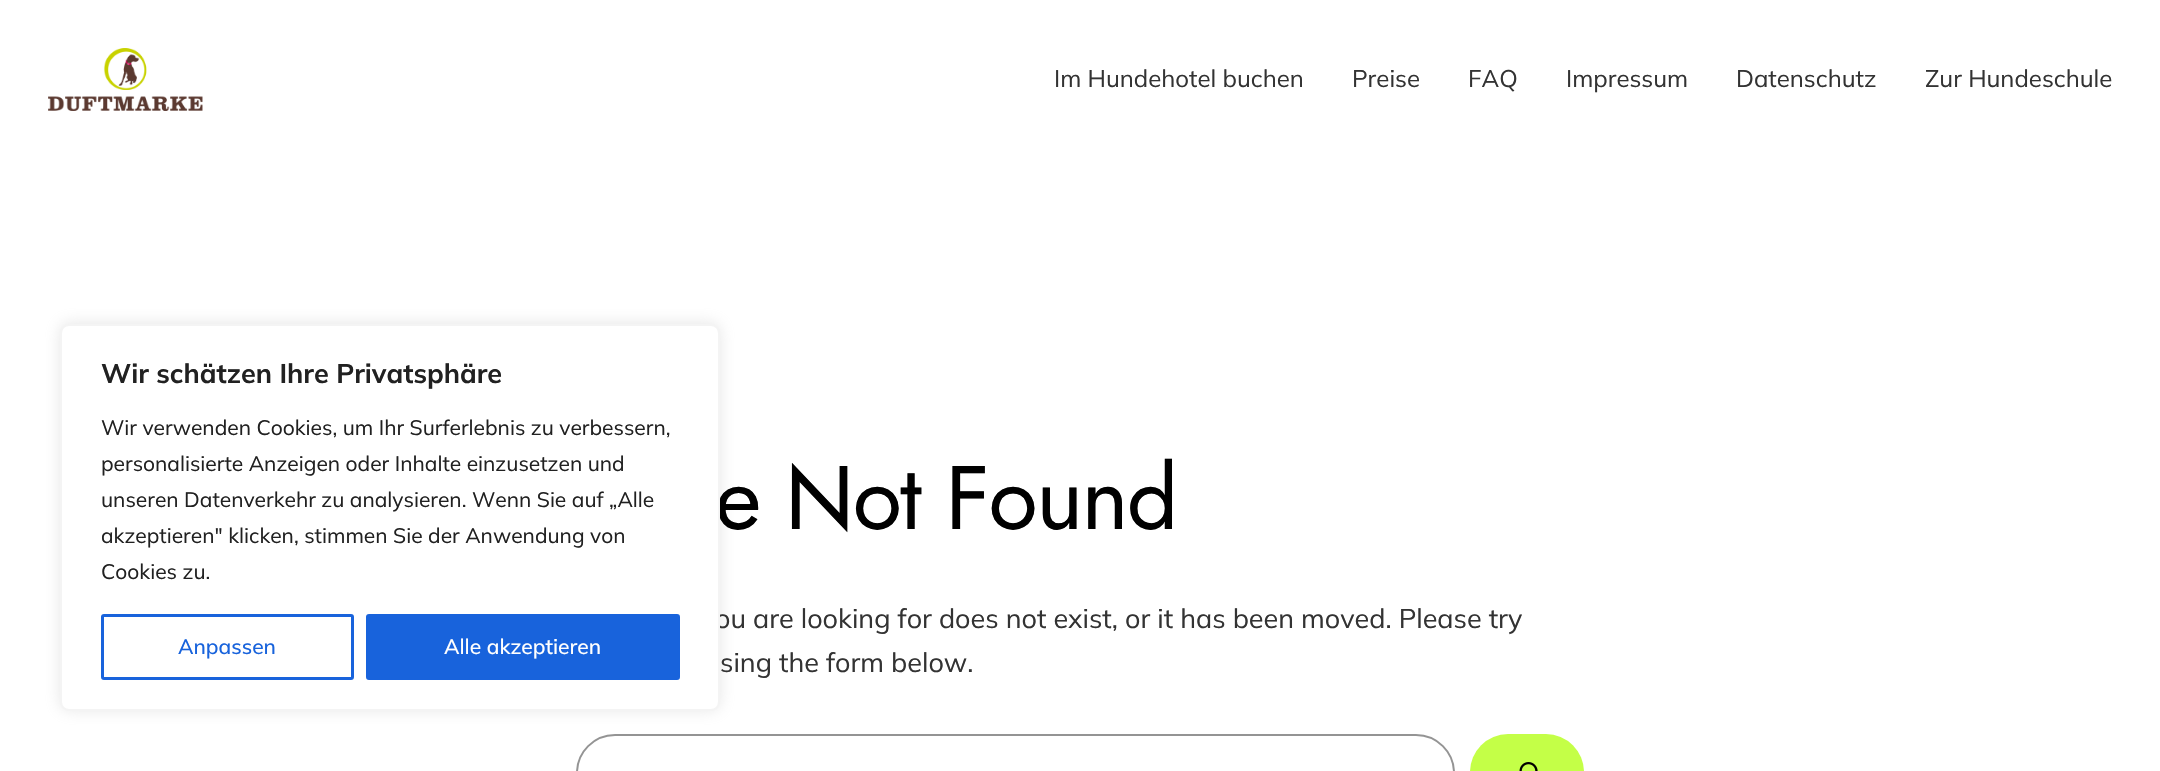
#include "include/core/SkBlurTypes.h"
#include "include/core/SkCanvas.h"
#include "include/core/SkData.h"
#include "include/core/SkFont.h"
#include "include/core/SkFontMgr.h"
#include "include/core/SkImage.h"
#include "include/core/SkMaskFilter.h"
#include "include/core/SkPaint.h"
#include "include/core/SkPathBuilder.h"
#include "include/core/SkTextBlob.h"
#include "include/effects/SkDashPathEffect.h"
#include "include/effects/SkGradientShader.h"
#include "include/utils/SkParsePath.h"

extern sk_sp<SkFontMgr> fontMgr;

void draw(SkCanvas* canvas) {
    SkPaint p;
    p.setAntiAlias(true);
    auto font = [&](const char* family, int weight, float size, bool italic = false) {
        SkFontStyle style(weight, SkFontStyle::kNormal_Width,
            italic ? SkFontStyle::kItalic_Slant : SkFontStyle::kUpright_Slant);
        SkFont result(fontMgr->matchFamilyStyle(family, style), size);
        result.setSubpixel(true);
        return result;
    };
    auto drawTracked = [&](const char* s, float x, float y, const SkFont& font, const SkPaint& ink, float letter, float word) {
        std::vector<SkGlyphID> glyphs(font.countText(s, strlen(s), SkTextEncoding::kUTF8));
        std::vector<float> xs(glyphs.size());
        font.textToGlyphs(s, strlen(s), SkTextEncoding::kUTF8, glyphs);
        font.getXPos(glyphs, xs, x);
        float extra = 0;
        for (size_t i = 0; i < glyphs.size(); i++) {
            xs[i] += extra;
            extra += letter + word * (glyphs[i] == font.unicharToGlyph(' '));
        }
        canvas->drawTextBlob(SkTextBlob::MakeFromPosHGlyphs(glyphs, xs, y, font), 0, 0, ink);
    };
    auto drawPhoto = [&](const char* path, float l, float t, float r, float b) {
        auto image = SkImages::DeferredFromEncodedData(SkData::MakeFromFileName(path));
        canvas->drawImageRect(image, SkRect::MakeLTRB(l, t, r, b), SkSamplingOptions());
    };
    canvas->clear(0xFFFFFFFF);
    p.setColor(0x4DACABAB);
    p.setMaskFilter(SkMaskFilter::MakeBlur(kNormal_SkBlurStyle, 7.5f));
    canvas->drawRoundRect(SkRect::MakeLTRB(60, 323, 720, 710), 9, 9, p);
    p.setMaskFilter(nullptr);
    auto font1 = font("Jost", 400, 90);
    p.setColor(0xFF000000);
    drawTracked("e Not Found", 715, 529, font1, p, -1.75f, 0);
    auto font2 = font("Mulish", 400, 27);
    p.setColor(0xFF333333);
    canvas->drawString("ou are looking for does not exist, or it has been moved. Please try", 715, 628, font2, p);
    p.setColor(0xFFFFFFFF);
    canvas->drawRoundRect(SkRect::MakeLTRB(61, 325, 719, 710), 8, 8, p);
    p.setStyle(SkPaint::kStroke_Style);
    p.setStrokeWidth(2);
    p.setColor(0xFFF4F4F4);
    canvas->drawRoundRect(SkRect::MakeLTRB(61, 325, 719, 710), 8, 8, p);
    auto font3 = font("Mulish", 700, 27);
    p.setStyle(SkPaint::kFill_Style);
    p.setColor(0xFF212121);
    canvas->drawString("Wir schätzen Ihre Privatsphäre", 101, 383, font3, p);
    auto font4 = font("Mulish", 400, 21);
    {
        const struct { const char* s; float x, y; } items[] = {
            {"Wir verwenden Cookies, um Ihr Surferlebnis zu verbessern,", 101, 435},
            {"personalisierte Anzeigen oder Inhalte einzusetzen und", 101, 471},
            {"unseren Datenverkehr zu analysieren. Wenn Sie auf „Alle", 101, 507},
            {"akzeptieren\" klicken, stimmen Sie der Anwendung von", 101, 543},
            {"Cookies zu.", 101, 579},
        };
        for (auto [s, x, y] : items) {
            canvas->drawString(s, x, y, font4, p);
        }
    }
    p.setStyle(SkPaint::kStroke_Style);
    p.setStrokeWidth(3);
    p.setColor(0xFF1863DC);
    canvas->drawRoundRect(SkRect::MakeLTRB(102.5f, 615.5f, 352.5f, 678.5f), 1.5f, 1.5f, p);
    auto font5 = font("Mulish", 500, 21);
    p.setStyle(SkPaint::kFill_Style);
    canvas->drawString("Anpassen", 178, 654, font5, p);
    canvas->drawRoundRect(SkRect::MakeLTRB(367.5f, 615.5f, 678.5f, 678.5f), 1.5f, 1.5f, p);
    p.setStyle(SkPaint::kStroke_Style);
    canvas->drawRoundRect(SkRect::MakeLTRB(367.5f, 615.5f, 678.5f, 678.5f), 1.5f, 1.5f, p);
    p.setStyle(SkPaint::kFill_Style);
    p.setColor(0xFFFFFFFF);
    canvas->drawString("Alle akzeptieren", 444, 654, font5, p);
    drawPhoto("media/1.png", 48, 48, 203, 111);
    auto font6 = font("Mulish", 400, 24);
    p.setColor(0xFF333333);
    {
        const struct { const char* s; float x, y; } items[] = {
            {"Im Hundehotel buchen", 1054, 87},
            {"Preise", 1352, 87},
            {"FAQ", 1468, 87},
            {"Impressum", 1566, 87},
            {"Datenschutz", 1736, 87},
            {"Zur Hundeschule", 1925, 87},
        };
        for (auto [s, x, y] : items) {
            canvas->drawString(s, x, y, font6, p);
        }
    }
    canvas->drawString("sing the form below.", 720, 672, font2, p);
    p.setStyle(SkPaint::kStroke_Style);
    p.setStrokeWidth(2);
    p.setColor(0xFF949494);
    canvas->drawRoundRect(SkRect::MakeLTRB(577, 735, 1454, 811), 38, 38, p);
    p.setStyle(SkPaint::kFill_Style);
    p.setColor(0xFFC4FF47);
    canvas->drawRoundRect(SkRect::MakeLTRB(1470, 734, 1584, 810), 39, 39, p);
    drawPhoto("media/2.png", 1519, 762, 1538, 771);
}
